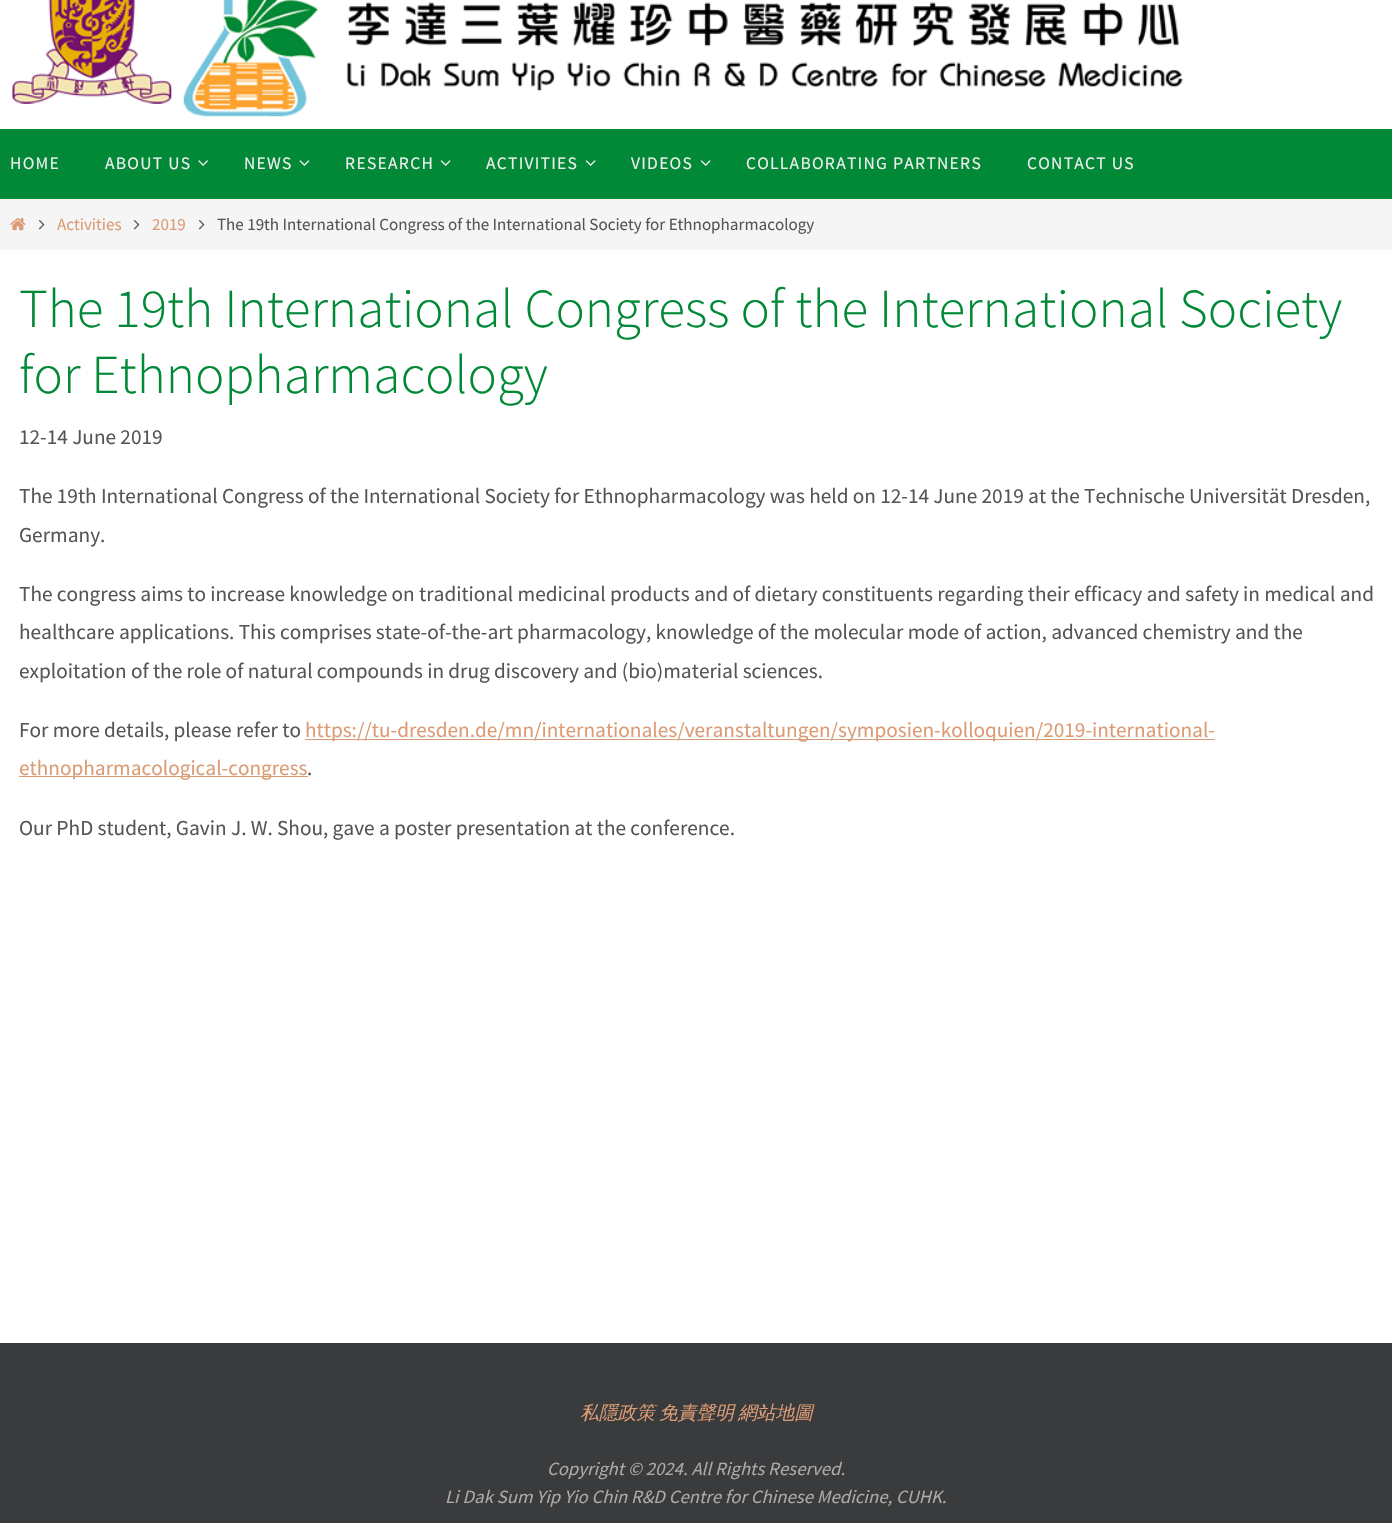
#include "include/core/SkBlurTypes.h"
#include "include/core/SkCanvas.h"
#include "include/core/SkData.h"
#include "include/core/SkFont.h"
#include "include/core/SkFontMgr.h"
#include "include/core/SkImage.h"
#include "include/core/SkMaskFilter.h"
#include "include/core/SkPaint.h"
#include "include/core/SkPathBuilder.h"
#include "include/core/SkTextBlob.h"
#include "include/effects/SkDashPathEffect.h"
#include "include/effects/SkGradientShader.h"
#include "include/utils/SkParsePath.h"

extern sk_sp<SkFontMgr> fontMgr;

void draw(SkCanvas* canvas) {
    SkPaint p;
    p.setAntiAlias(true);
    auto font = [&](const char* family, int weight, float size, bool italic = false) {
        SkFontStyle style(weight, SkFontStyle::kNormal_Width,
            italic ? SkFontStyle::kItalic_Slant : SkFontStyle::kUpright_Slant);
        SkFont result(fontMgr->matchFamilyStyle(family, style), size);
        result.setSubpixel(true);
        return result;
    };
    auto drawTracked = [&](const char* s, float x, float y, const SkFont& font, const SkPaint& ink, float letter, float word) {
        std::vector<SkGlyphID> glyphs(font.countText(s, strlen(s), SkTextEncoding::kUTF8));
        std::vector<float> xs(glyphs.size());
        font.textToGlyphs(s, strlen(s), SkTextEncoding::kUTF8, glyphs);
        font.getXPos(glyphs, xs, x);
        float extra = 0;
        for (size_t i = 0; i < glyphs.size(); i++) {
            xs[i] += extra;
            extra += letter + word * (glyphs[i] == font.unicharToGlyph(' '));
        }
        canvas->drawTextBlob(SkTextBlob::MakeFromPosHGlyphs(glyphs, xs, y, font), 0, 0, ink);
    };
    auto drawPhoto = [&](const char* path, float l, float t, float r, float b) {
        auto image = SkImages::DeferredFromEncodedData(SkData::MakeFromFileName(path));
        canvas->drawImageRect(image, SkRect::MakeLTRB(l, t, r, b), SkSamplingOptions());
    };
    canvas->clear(0xFFFFFFFF);
    drawPhoto("media/1.png", 12, 0, 172, 104);
    drawPhoto("media/2.png", 183, 0, 1183, 117);
    p.setColor(0xFF028937);
    canvas->drawRect(SkRect::MakeLTRB(0, 129, 1392, 199), p);
    auto font1 = font("Source Sans Pro", 400, 17.5f);
    p.setColor(0xFFEEEEEE);
    drawTracked("HOME", 10, 169, font1, p, 1.25f, 0);
    drawTracked("ABOUT US", 105, 169, font1, p, 1.25f, 0);
    drawPhoto("media/3.png", 198, 160, 208, 166);
    drawTracked("NEWS", 244, 169, font1, p, 1.25f, 0);
    drawPhoto("media/4.png", 299, 160, 310, 166);
    drawTracked("RESEARCH", 345, 169, font1, p, 1.25f, 0);
    drawPhoto("media/5.png", 440, 160, 451, 166);
    drawTracked("ACTIVITIES", 486, 169, font1, p, 1.25f, 0);
    drawPhoto("media/5.png", 585, 160, 596, 166);
    drawTracked("VIDEOS", 631, 169, font1, p, 1.25f, 0);
    drawPhoto("media/5.png", 700, 160, 711, 166);
    drawTracked("COLLABORATING PARTNERS", 746, 169, font1, p, 1.25f, 0);
    drawTracked("CONTACT US", 1027, 169, font1, p, 1.25f, 0);
    p.setColor(0xFFF5F5F5);
    canvas->drawRect(SkRect::MakeLTRB(0, 199, 1392, 250), p);
    drawPhoto("media/6.png", 10, 218, 26, 231);
    drawPhoto("media/7.png", 38, 220, 45, 230);
    auto font2 = font("Source Sans Pro", 400, 17);
    p.setColor(0xFFDB9B74);
    canvas->drawString("Activities", 57, 230, font2, p);
    drawPhoto("media/7.png", 133, 220, 140, 230);
    canvas->drawString("2019", 152, 230, font2, p);
    drawPhoto("media/7.png", 198, 220, 205, 230);
    p.setColor(0xFF555555);
    canvas->drawString("The 19th International Congress of the International Society for Ethnopharmacology", 217, 230, font2, p);
    auto font3 = font("Source Sans Pro", 300, 55);
    p.setColor(0xFF028937);
    canvas->drawString("The 19th International Congress of the International Society", 19, 327, font3, p);
    canvas->drawString("for Ethnopharmacology", 19, 393, font3, p);
    auto font4 = font("Source Sans Pro", 400, 21.25f);
    p.setColor(0xFF555555);
    {
        const struct { const char* s; float x, y; } items[] = {
            {"12-14 June 2019", 19, 444},
            {"The 19th International Congress of the International Society for Ethnopharmacology was held on 12-14 June 2019 at the Technische Universität Dresden,", 19, 503},
            {"Germany.", 19, 542},
            {"The congress aims to increase knowledge on traditional medicinal products and of dietary constituents regarding their efficacy and safety in medical and", 19, 601},
            {"healthcare applications. This comprises state-of-the-art pharmacology, knowledge of the molecular mode of action, advanced chemistry and the", 19, 639},
            {"exploitation of the role of natural compounds in drug discovery and (bio)material sciences.", 19, 678},
            {"For more details, please refer to", 19, 737},
        };
        for (auto [s, x, y] : items) {
            canvas->drawString(s, x, y, font4, p);
        }
    }
    p.setColor(0xFFDB9B74);
    canvas->drawRect(SkRect::MakeLTRB(305, 739, 1215, 740), p);
    canvas->drawString("https://tu-dresden.de/mn/internationales/veranstaltungen/symposien-kolloquien/2019-international-", 305, 737, font4, p);
    canvas->drawRect(SkRect::MakeLTRB(19, 776, 308, 777), p);
    canvas->drawString("ethnopharmacological-congress", 19, 775, font4, p);
    p.setColor(0xFF555555);
    canvas->drawString(".", 307, 775, font4, p);
    canvas->drawString("Our PhD student, Gavin J. W. Shou, gave a poster presentation at the conference.", 19, 835, font4, p);
    p.setColor(0xFF3A3B3D);
    canvas->drawRect(SkRect::MakeLTRB(0, 1343, 1392, 1523), p);
    auto font5 = font("WenQuanYi Zen Hei", 500, 18.75f, true);
    p.setColor(0xFFDB9B74);
    {
        const struct { const char* s; float x, y; } items[] = {
            {"私隱政策", 580, 1419},
            {"免責聲明", 659, 1419},
            {"網站地圖", 738, 1419},
        };
        for (auto [s, x, y] : items) {
            canvas->drawString(s, x, y, font5, p);
        }
    }
    auto font6 = font("Source Sans Pro", 400, 18.75f, true);
    p.setColor(0xFFAAAAAA);
    canvas->drawString("Copyright © 2024. All Rights Reserved.", 547, 1475, font6, p);
    canvas->drawString("Li Dak Sum Yip Yio Chin R&D Centre for Chinese Medicine, CUHK.", 445, 1503, font6, p);
}
